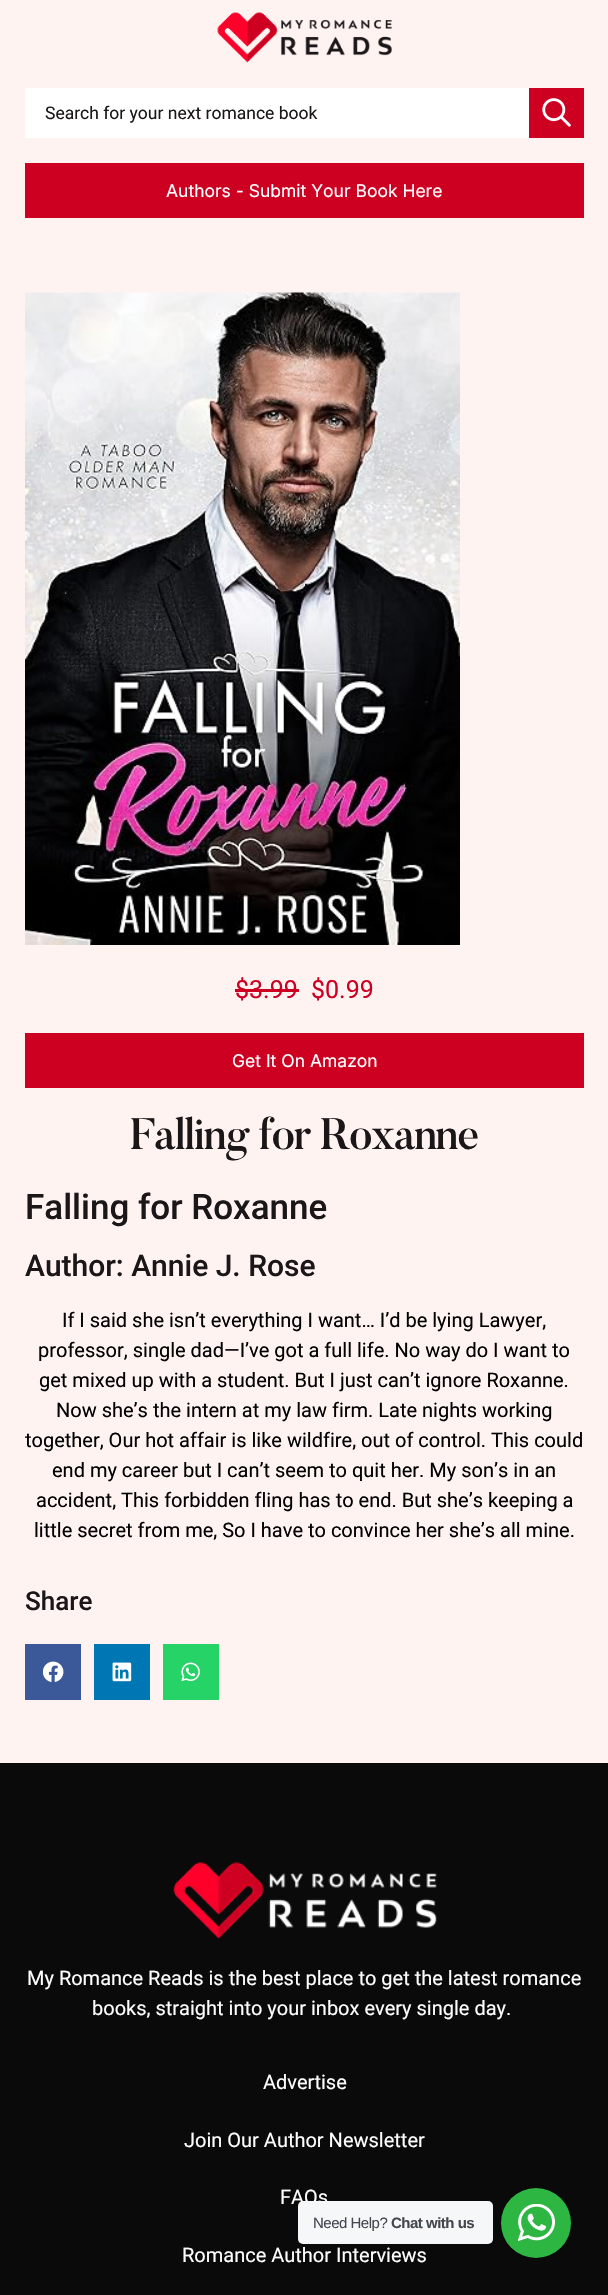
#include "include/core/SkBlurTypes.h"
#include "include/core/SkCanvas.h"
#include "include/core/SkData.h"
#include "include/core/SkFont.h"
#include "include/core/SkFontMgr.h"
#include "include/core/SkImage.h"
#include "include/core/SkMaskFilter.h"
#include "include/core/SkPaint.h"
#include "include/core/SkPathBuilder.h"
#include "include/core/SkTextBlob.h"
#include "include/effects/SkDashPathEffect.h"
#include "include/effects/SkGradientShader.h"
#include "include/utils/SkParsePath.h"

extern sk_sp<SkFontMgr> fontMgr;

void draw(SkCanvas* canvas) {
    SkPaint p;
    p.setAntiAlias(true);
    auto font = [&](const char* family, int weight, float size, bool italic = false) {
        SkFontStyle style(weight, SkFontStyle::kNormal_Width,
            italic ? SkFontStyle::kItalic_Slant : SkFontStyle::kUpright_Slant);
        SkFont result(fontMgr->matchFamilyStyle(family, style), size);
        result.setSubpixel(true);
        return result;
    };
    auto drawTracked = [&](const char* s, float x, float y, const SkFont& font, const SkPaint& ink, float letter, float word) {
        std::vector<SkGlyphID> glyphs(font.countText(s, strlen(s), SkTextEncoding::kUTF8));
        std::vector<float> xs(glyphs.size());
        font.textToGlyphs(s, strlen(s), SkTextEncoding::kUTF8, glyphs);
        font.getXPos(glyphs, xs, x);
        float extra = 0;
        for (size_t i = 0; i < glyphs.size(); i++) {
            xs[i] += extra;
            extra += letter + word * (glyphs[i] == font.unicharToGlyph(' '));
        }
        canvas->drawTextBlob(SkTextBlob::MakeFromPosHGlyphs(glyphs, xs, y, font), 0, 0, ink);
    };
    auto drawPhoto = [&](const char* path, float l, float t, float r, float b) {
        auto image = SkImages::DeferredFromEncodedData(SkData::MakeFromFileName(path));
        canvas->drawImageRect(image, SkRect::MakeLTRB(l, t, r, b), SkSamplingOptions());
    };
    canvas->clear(0xFFFFF3F2);
    drawPhoto("media/1.png", 217, 12, 392, 63);
    p.setColor(0xFFFFFFFF);
    canvas->drawRect(SkRect::MakeLTRB(25, 88, 529, 138), p);
    auto font1 = font("Roboto", 400, 17.5f);
    p.setColor(0xFF1B1718);
    canvas->drawString("Search for your next romance book", 45, 119, font1, p);
    p.setColor(0xFFCE0022);
    canvas->drawRect(SkRect::MakeLTRB(529, 88, 584, 138), p);
    drawPhoto("media/2.png", 542, 98, 571, 127);
    canvas->drawRect(SkRect::MakeLTRB(25, 163, 584, 218), p);
    auto font2 = font("Inter", 400, 17.5f);
    p.setColor(0xFFFFFFFF);
    canvas->drawString("Authors - Submit Your Book Here", 166, 197, font2, p);
    drawPhoto("media/3.png", 25, 292, 460, 945);
    auto font3 = font("Roboto", 400, 25);
    p.setColor(0xFFCE0022);
    canvas->drawString("$3.99", 235, 998, font3, p);
    canvas->drawRect(SkRect::MakeLTRB(235, 989, 299, 992), p);
    canvas->drawString("$0.99", 311, 998, font3, p);
    canvas->drawRect(SkRect::MakeLTRB(25, 1033, 584, 1088), p);
    p.setColor(0xFFFFFFFF);
    canvas->drawString("Get It On Amazon", 232, 1067, font2, p);
    auto font4 = font("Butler", 500, 43.75f);
    p.setColor(0xFF1B1718);
    drawTracked("Falling for Roxanne", 130, 1149, font4, p, -1.25f, 0);
    auto font5 = font("Roboto", 500, 35);
    canvas->drawString("Falling for Roxanne", 25, 1219, font5, p);
    auto font6 = font("Roboto", 500, 30);
    canvas->drawString("Author: Annie J. Rose", 25, 1276, font6, p);
    auto font7 = font("Roboto", 400, 20);
    p.setColor(0xFF000000);
    {
        const struct { const char* s; float x, y; } items[] = {
            {"If I said she isn’t everything I want… I’d be lying Lawyer,", 62, 1327},
            {"professor, single dad—I’ve got a full life. No way do I want to", 38, 1357},
            {"get mixed up with a student. But I just can’t ignore Roxanne.", 39, 1387},
            {"Now she’s the intern at my law firm. Late nights working", 56, 1417},
            {"together, Our hot affair is like wildfire, out of control. This could", 25, 1447},
            {"end my career but I can’t seem to quit her. My son’s in an", 52, 1477},
            {"accident, This forbidden fling has to end. But she’s keeping a", 36, 1507},
            {"little secret from me, So I have to convince her she’s all mine.", 34, 1537},
        };
        for (auto [s, x, y] : items) {
            canvas->drawString(s, x, y, font7, p);
        }
    }
    auto font8 = font("Roboto", 500, 26);
    p.setColor(0xFF1B1718);
    canvas->drawString("Share", 25, 1610, font8, p);
    p.setColor(0xFF3B5998);
    canvas->drawRect(SkRect::MakeLTRB(25, 1644, 81, 1700), p);
    drawPhoto("media/4.png", 43, 1661, 64, 1682);
    p.setColor(0xFF0077B5);
    canvas->drawRect(SkRect::MakeLTRB(94, 1644, 150, 1700), p);
    drawPhoto("media/5.png", 112, 1662, 132, 1682);
    p.setColor(0xFF25D366);
    canvas->drawRect(SkRect::MakeLTRB(163, 1644, 219, 1700), p);
    drawPhoto("media/6.png", 181, 1662, 200, 1682);
    p.setColor(0xFF0A0A0A);
    canvas->drawRect(SkRect::MakeLTRB(0, 1763, 608, 2295), p);
    drawPhoto("media/7.png", 173, 1862, 437, 1939);
    p.setColor(0xFFFFFFFF);
    {
        const struct { const char* s; float x, y; } items[] = {
            {"My Romance Reads is the best place to get the latest romance", 27, 1985},
            {"books, straight into your inbox every single day.", 92, 2015},
            {"Advertise", 263, 2089},
            {"Join Our Author Newsletter", 184, 2147},
            {"FAQs", 280, 2204},
            {"Romance Author Interviews", 182, 2262},
        };
        for (auto [s, x, y] : items) {
            canvas->drawString(s, x, y, font7, p);
        }
    }
    p.setColor(0xFFF5F7F9);
    canvas->drawRoundRect(SkRect::MakeLTRB(298, 2201, 493, 2244), 5, 5, p);
    auto font9 = font("Liberation Sans", 400, 15);
    p.setColor(0xFF43474E);
    drawTracked("Need Help?", 313, 2228, font9, p, -0.5f, 0);
    auto font10 = font("Liberation Sans", 700, 15);
    drawTracked("Chat with us", 391, 2228, font10, p, -0.5f, 0);
    p.setColor(0xFF2DB742);
    canvas->drawCircle(536, 2223, 35, p);
    drawPhoto("media/8.png", 518, 2204, 555, 2241);
}
